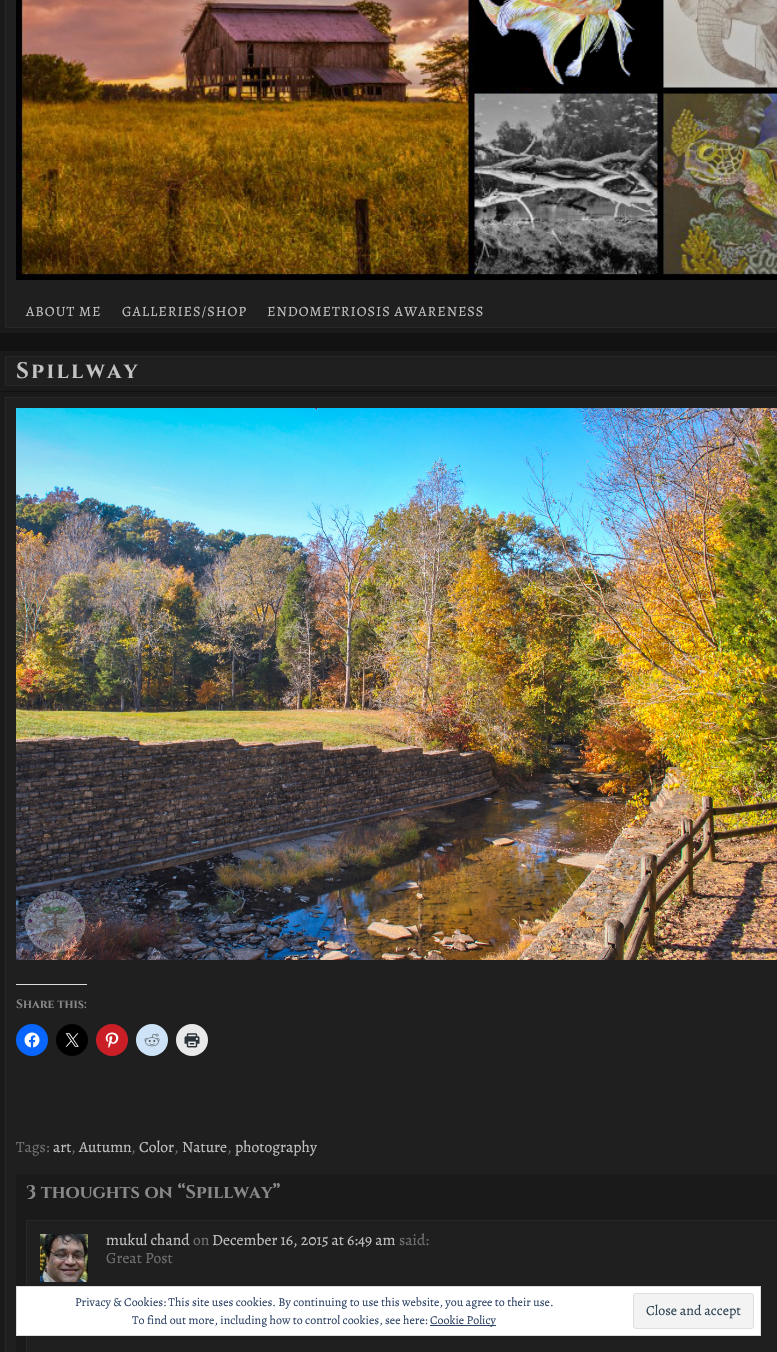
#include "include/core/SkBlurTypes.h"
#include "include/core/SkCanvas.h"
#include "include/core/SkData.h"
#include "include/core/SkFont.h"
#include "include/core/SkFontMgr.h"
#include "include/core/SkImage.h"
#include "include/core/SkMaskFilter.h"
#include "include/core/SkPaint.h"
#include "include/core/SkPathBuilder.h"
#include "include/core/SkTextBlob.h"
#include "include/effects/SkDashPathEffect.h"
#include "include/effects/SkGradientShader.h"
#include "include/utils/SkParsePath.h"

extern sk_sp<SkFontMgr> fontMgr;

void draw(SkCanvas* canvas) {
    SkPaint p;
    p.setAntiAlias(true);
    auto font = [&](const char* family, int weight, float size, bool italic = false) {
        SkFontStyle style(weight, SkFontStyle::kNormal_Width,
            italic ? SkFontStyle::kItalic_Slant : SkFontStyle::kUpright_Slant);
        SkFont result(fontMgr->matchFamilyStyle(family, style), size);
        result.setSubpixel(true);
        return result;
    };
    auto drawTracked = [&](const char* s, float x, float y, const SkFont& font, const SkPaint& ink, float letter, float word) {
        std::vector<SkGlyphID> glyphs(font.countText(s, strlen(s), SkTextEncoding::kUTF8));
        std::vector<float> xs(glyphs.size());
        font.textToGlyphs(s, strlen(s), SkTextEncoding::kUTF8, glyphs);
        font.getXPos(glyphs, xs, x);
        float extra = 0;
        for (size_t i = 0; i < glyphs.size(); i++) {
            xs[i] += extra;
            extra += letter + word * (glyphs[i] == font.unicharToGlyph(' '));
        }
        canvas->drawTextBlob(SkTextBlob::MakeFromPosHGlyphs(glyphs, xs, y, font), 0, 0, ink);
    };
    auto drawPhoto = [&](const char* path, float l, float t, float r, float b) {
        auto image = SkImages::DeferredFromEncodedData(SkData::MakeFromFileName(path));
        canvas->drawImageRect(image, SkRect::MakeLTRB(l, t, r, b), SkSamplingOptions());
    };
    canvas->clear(0xFF121212);
    p.setColor(0xFF1A1A1A);
    canvas->drawRect(SkRect::MakeLTRB(0, 0, 777, 333), p);
    p.setColor(0xFF1F1F1F);
    canvas->drawRect(SkRect::MakeLTRB(5.5f, -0.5f, 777.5f, 327.5f), p);
    p.setStyle(SkPaint::kStroke_Style);
    p.setStrokeWidth(1);
    p.setColor(0xFF272727);
    canvas->drawRect(SkRect::MakeLTRB(5.5f, -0.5f, 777.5f, 327.5f), p);
    drawPhoto("media/1.png", 16, 0, 777, 280);
    auto font1 = font("Alegreya", 400, 14.25f);
    p.setStyle(SkPaint::kFill_Style);
    p.setColor(0xFFC2C2C2);
    {
        const struct { const char* s; float x, y; } items[] = {
            {"ABOUT ME", 26, 316},
            {"GALLERIES/SHOP", 122, 316},
            {"ENDOMETRIOSIS AWARENESS", 267, 316},
        };
        for (auto [s, x, y] : items) {
            drawTracked(s, x, y, font1, p, 1, 0);
        }
    }
    p.setColor(0xFF1A1A1A);
    canvas->drawRect(SkRect::MakeLTRB(0, 351, 777, 391), p);
    p.setColor(0xFF1F1F1F);
    canvas->drawRect(SkRect::MakeLTRB(5.5f, 356.5f, 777.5f, 385.5f), p);
    p.setStyle(SkPaint::kStroke_Style);
    p.setColor(0xFF272727);
    canvas->drawRect(SkRect::MakeLTRB(5.5f, 356.5f, 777.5f, 385.5f), p);
    auto font2 = font("Cinzel", 700, 22.25f);
    p.setStyle(SkPaint::kFill_Style);
    p.setColor(0xFFC2C2C2);
    drawTracked("Spillway", 16, 378, font2, p, 2.25f, 0);
    p.setColor(0xFF1A1A1A);
    canvas->drawRect(SkRect::MakeLTRB(0, 392, 777, 1352), p);
    p.setColor(0xFF1F1F1F);
    canvas->drawRect(SkRect::MakeLTRB(5.5f, 397.5f, 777.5f, 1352.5f), p);
    p.setStyle(SkPaint::kStroke_Style);
    p.setColor(0xFF272727);
    canvas->drawRect(SkRect::MakeLTRB(5.5f, 397.5f, 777.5f, 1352.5f), p);
    drawPhoto("media/2.png", 16, 408, 777, 960);
    p.setStyle(SkPaint::kFill_Style);
    p.setColor(0xFFDCDCDE);
    canvas->drawRect(SkRect::MakeLTRB(16, 984, 87, 985), p);
    auto font3 = font("Cinzel", 700, 12);
    p.setColor(0xFF888888);
    canvas->drawString("Share this:", 16, 1008, font3, p);
    p.setColor(0xFF0866FF);
    canvas->drawCircle(32, 1040, 16, p);
    drawPhoto("media/3.png", 24, 1032, 40, 1048);
    p.setColor(0xFF000000);
    canvas->drawCircle(72, 1040, 16, p);
    drawPhoto("media/4.png", 65, 1033, 79, 1047);
    p.setColor(0xFFCA1F27);
    canvas->drawCircle(112, 1040, 16, p);
    drawPhoto("media/5.png", 105, 1032, 119, 1048);
    p.setColor(0xFFCEE3F8);
    canvas->drawCircle(152, 1040, 16, p);
    drawPhoto("media/6.png", 144, 1033, 160, 1047);
    p.setColor(0xFFE9E9E9);
    canvas->drawCircle(192, 1040, 16, p);
    drawPhoto("media/7.png", 184, 1033, 200, 1048);
    auto font4 = font("Alegreya", 400, 15.6f);
    p.setColor(0xFF727272);
    canvas->drawString("Tags:", 16, 1152, font4, p);
    p.setColor(0xFFC2C2C2);
    canvas->drawString("art", 53, 1152, font4, p);
    p.setColor(0xFF727272);
    canvas->drawString(",", 71, 1152, font4, p);
    p.setColor(0xFFC2C2C2);
    canvas->drawString("Autumn", 79, 1152, font4, p);
    p.setColor(0xFF727272);
    canvas->drawString(",", 131, 1152, font4, p);
    p.setColor(0xFFC2C2C2);
    canvas->drawString("Color", 139, 1152, font4, p);
    p.setColor(0xFF727272);
    canvas->drawString(",", 174, 1152, font4, p);
    p.setColor(0xFFC2C2C2);
    canvas->drawString("Nature", 182, 1152, font4, p);
    p.setColor(0xFF727272);
    canvas->drawString(",", 227, 1152, font4, p);
    p.setColor(0xFFC2C2C2);
    canvas->drawString("photography", 235, 1152, font4, p);
    p.setColor(0xFF1A1A1A);
    canvas->drawRect(SkRect::MakeLTRB(16, 1174, 777, 1352), p);
    auto font5 = font("Cinzel", 700, 18.25f);
    p.setColor(0xFF888888);
    canvas->drawString("3 thoughts on “Spillway”", 26, 1198, font5, p);
    p.setColor(0xFF1F1F1F);
    canvas->drawRect(SkRect::MakeLTRB(26.5f, 1220.5f, 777.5f, 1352.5f), p);
    p.setStyle(SkPaint::kStroke_Style);
    p.setColor(0xFF272727);
    canvas->drawRect(SkRect::MakeLTRB(26.5f, 1220.5f, 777.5f, 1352.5f), p);
    drawPhoto("media/8.png", 40, 1234, 88, 1282);
    p.setStyle(SkPaint::kFill_Style);
    p.setColor(0xFFC2C2C2);
    canvas->drawString("mukul chand", 106, 1245, font4, p);
    p.setColor(0xFF727272);
    canvas->drawString("on", 193, 1245, font4, p);
    p.setColor(0xFFC2C2C2);
    canvas->drawString("December 16, 2015 at 6:49 am", 212, 1245, font4, p);
    p.setColor(0xFF727272);
    canvas->drawString("said:", 399, 1245, font4, p);
    canvas->drawString("Great Post", 106, 1263, font4, p);
    p.setColor(0xFFFFFFFF);
    canvas->drawRect(SkRect::MakeLTRB(16.5f, 1286.5f, 760.5f, 1335.5f), p);
    p.setStyle(SkPaint::kStroke_Style);
    p.setColor(0xFFDEDEDE);
    canvas->drawRect(SkRect::MakeLTRB(16.5f, 1286.5f, 760.5f, 1335.5f), p);
    auto font6 = font("Alegreya", 400, 12);
    p.setStyle(SkPaint::kFill_Style);
    p.setColor(0xFF2E4467);
    canvas->drawString("Privacy & Cookies: This site uses cookies. By continuing to use this website, you agree to their use.", 75, 1306, font6, p);
    p.setColor(0xFFF3F3F3);
    canvas->drawRoundRect(SkRect::MakeLTRB(633.5f, 1293.5f, 753.5f, 1328.5f), 2.5f, 2.5f, p);
    p.setStyle(SkPaint::kStroke_Style);
    p.setColor(0xFFDEDEDE);
    canvas->drawRoundRect(SkRect::MakeLTRB(633.5f, 1293.5f, 753.5f, 1328.5f), 2.5f, 2.5f, p);
    auto font7 = font("Alegreya", 400, 14);
    p.setStyle(SkPaint::kFill_Style);
    p.setColor(0xFF2E4453);
    canvas->drawString("Close and accept", 646, 1315, font7, p);
    p.setColor(0xFF2E4467);
    canvas->drawString("To find out more, including how to control cookies, see here:", 132, 1324, font6, p);
    canvas->drawRect(SkRect::MakeLTRB(430, 1325, 496, 1326), p);
    canvas->drawString("Cookie Policy", 430, 1324, font6, p);
}
